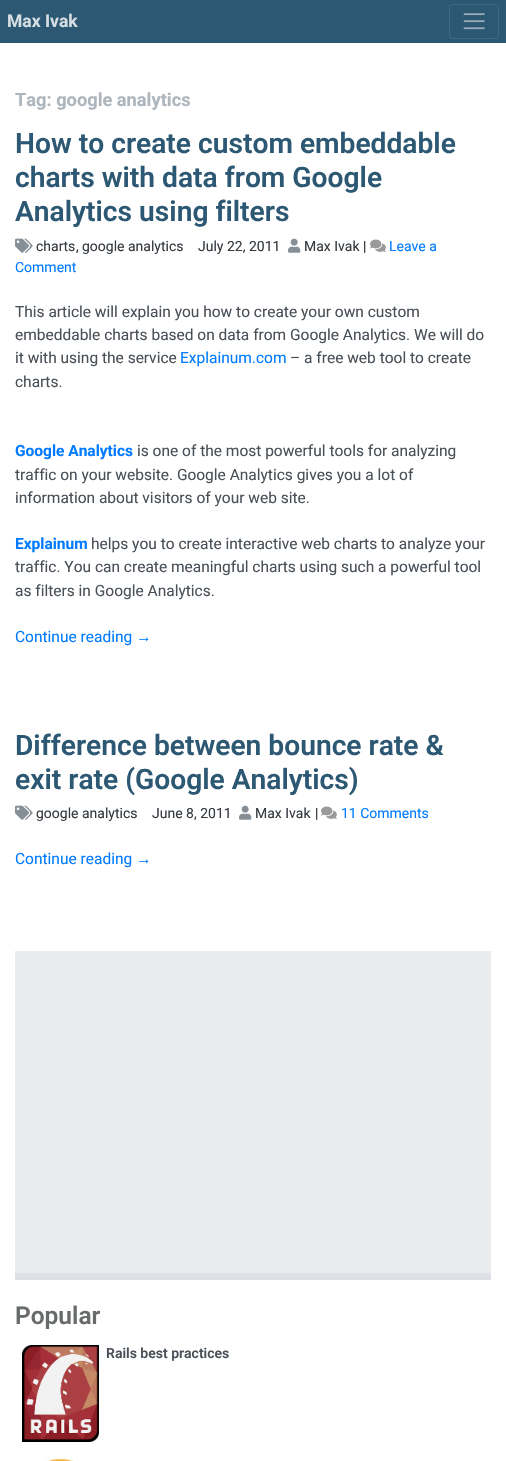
#include "include/core/SkBlurTypes.h"
#include "include/core/SkCanvas.h"
#include "include/core/SkData.h"
#include "include/core/SkFont.h"
#include "include/core/SkFontMgr.h"
#include "include/core/SkImage.h"
#include "include/core/SkMaskFilter.h"
#include "include/core/SkPaint.h"
#include "include/core/SkPathBuilder.h"
#include "include/core/SkTextBlob.h"
#include "include/effects/SkDashPathEffect.h"
#include "include/effects/SkGradientShader.h"
#include "include/utils/SkParsePath.h"

extern sk_sp<SkFontMgr> fontMgr;

void draw(SkCanvas* canvas) {
    SkPaint p;
    p.setAntiAlias(true);
    auto font = [&](const char* family, int weight, float size, bool italic = false) {
        SkFontStyle style(weight, SkFontStyle::kNormal_Width,
            italic ? SkFontStyle::kItalic_Slant : SkFontStyle::kUpright_Slant);
        SkFont result(fontMgr->matchFamilyStyle(family, style), size);
        result.setSubpixel(true);
        return result;
    };
    auto drawPhoto = [&](const char* path, float l, float t, float r, float b) {
        auto image = SkImages::DeferredFromEncodedData(SkData::MakeFromFileName(path));
        canvas->drawImageRect(image, SkRect::MakeLTRB(l, t, r, b), SkSamplingOptions());
    };
    canvas->clear(0xFFFFFFFF);
    p.setColor(0xFF2D5874);
    canvas->drawRect(SkRect::MakeLTRB(0, 0, 506, 43), p);
    auto font1 = font("Roboto", 700, 17.5f);
    p.setColor(0xFFD5DEE3);
    canvas->drawString("Max Ivak", 7, 27, font1, p);
    p.setStyle(SkPaint::kStroke_Style);
    p.setStrokeWidth(1);
    p.setColor(0xFF426982);
    canvas->drawRoundRect(SkRect::MakeLTRB(449.5f, 4.5f, 498.5f, 38.5f), 3.5f, 3.5f, p);
    drawPhoto("media/1.png", 463, 13, 485, 30);
    auto font2 = font("Roboto", 700, 18.25f);
    p.setStyle(SkPaint::kFill_Style);
    p.setColor(0xFFADB5BD);
    canvas->drawString("Tag: google analytics", 15, 106, font2, p);
    auto font3 = font("Roboto", 600, 28.2f);
    p.setColor(0xFF2D5874);
    {
        const struct { const char* s; float x, y; } items[] = {
            {"How to create custom embeddable", 15, 153},
            {"charts with data from Google", 15, 187},
            {"Analytics using filters", 15, 221},
        };
        for (auto [s, x, y] : items) {
            canvas->drawString(s, x, y, font3, p);
        }
    }
    drawPhoto("media/2.png", 15, 238, 33, 253);
    auto font4 = font("Roboto", 400, 14);
    p.setColor(0xFF343A40);
    {
        const struct { const char* s; float x, y; } items[] = {
            {"charts", 36, 251},
            {"google analytics", 82, 251},
            {"July 22, 2011", 198, 251},
        };
        for (auto [s, x, y] : items) {
            canvas->drawString(s, x, y, font4, p);
        }
    }
    drawPhoto("media/3.png", 288, 238, 301, 253);
    canvas->drawString("Max Ivak", 304, 251, font4, p);
    p.setColor(0xFF212529);
    canvas->drawString("|", 363, 251, font4, p);
    drawPhoto("media/4.png", 370, 239, 386, 252);
    p.setColor(0xFF007BFF);
    canvas->drawString("Leave a", 389, 251, font4, p);
    canvas->drawString("Comment", 15, 272, font4, p);
    p.setColor(0xFF212529);
    canvas->drawString(",", 76, 251, font4, p);
    auto font5 = font("Roboto", 400, 15.5f);
    p.setColor(0xFF495057);
    {
        const struct { const char* s; float x, y; } items[] = {
            {"This article will explain you how to create your own custom", 15, 317},
            {"embeddable charts based on data from Google Analytics. We will do", 15, 340},
            {"it with using the service", 15, 363},
        };
        for (auto [s, x, y] : items) {
            canvas->drawString(s, x, y, font5, p);
        }
    }
    p.setColor(0xFF007BFF);
    canvas->drawString("Explainum.com", 180, 363, font5, p);
    p.setColor(0xFF495057);
    canvas->drawString("– a free web tool to create", 290, 363, font5, p);
    canvas->drawString("charts.", 15, 387, font5, p);
    auto font6 = font("Roboto", 700, 15.5f);
    p.setColor(0xFF007BFF);
    canvas->drawString("Google Analytics", 15, 456, font6, p);
    p.setColor(0xFF495057);
    {
        const struct { const char* s; float x, y; } items[] = {
            {"is one of the most powerful tools for analyzing", 137, 456},
            {"traffic on your website. Google Analytics gives you a lot of", 15, 480},
            {"information about visitors of your web site.", 15, 503},
        };
        for (auto [s, x, y] : items) {
            canvas->drawString(s, x, y, font5, p);
        }
    }
    p.setColor(0xFF007BFF);
    canvas->drawString("Explainum", 15, 549, font6, p);
    p.setColor(0xFF495057);
    {
        const struct { const char* s; float x, y; } items[] = {
            {"helps you to create interactive web charts to analyze your", 91, 549},
            {"traffic. You can create meaningful charts using such a powerful tool", 15, 572},
            {"as filters in Google Analytics.", 15, 596},
        };
        for (auto [s, x, y] : items) {
            canvas->drawString(s, x, y, font5, p);
        }
    }
    p.setColor(0xFF007BFF);
    canvas->drawString("Continue reading", 15, 642, font5, p);
    auto font7 = font("Liberation Sans", 400, 15.5f);
    canvas->drawString("→", 136, 642, font7, p);
    p.setColor(0xFF2D5874);
    canvas->drawString("Difference between bounce rate &", 15, 755, font3, p);
    canvas->drawString("exit rate (Google Analytics)", 15, 789, font3, p);
    drawPhoto("media/2.png", 15, 805, 33, 820);
    p.setColor(0xFF343A40);
    canvas->drawString("google analytics", 36, 818, font4, p);
    canvas->drawString("June 8, 2011", 152, 818, font4, p);
    drawPhoto("media/3.png", 239, 805, 252, 820);
    canvas->drawString("Max Ivak", 255, 818, font4, p);
    p.setColor(0xFF212529);
    canvas->drawString("|", 315, 818, font4, p);
    drawPhoto("media/4.png", 321, 806, 337, 819);
    p.setColor(0xFF007BFF);
    canvas->drawString("11 Comments", 341, 818, font4, p);
    canvas->drawString("Continue reading", 15, 864, font5, p);
    canvas->drawString("→", 136, 864, font7, p);
    p.setColor(0xFFE9ECEF);
    canvas->drawRect(SkRect::MakeLTRB(15, 951, 491, 1273), p);
    p.setColor(0xFFDEE2E6);
    canvas->drawRect(SkRect::MakeLTRB(15, 1273, 491, 1280), p);
    auto font8 = font("Roboto", 600, 24.5f);
    p.setColor(0xFF686C68);
    canvas->drawString("Popular", 15, 1324, font8, p);
    drawPhoto("media/5.png", 22, 1345, 99, 1442);
    auto font9 = font("Roboto", 600, 14);
    p.setColor(0xFF495057);
    canvas->drawString("Rails best practices", 106, 1358, font9, p);
    drawPhoto("media/6.png", 46, 1457, 74, 1461);
}
